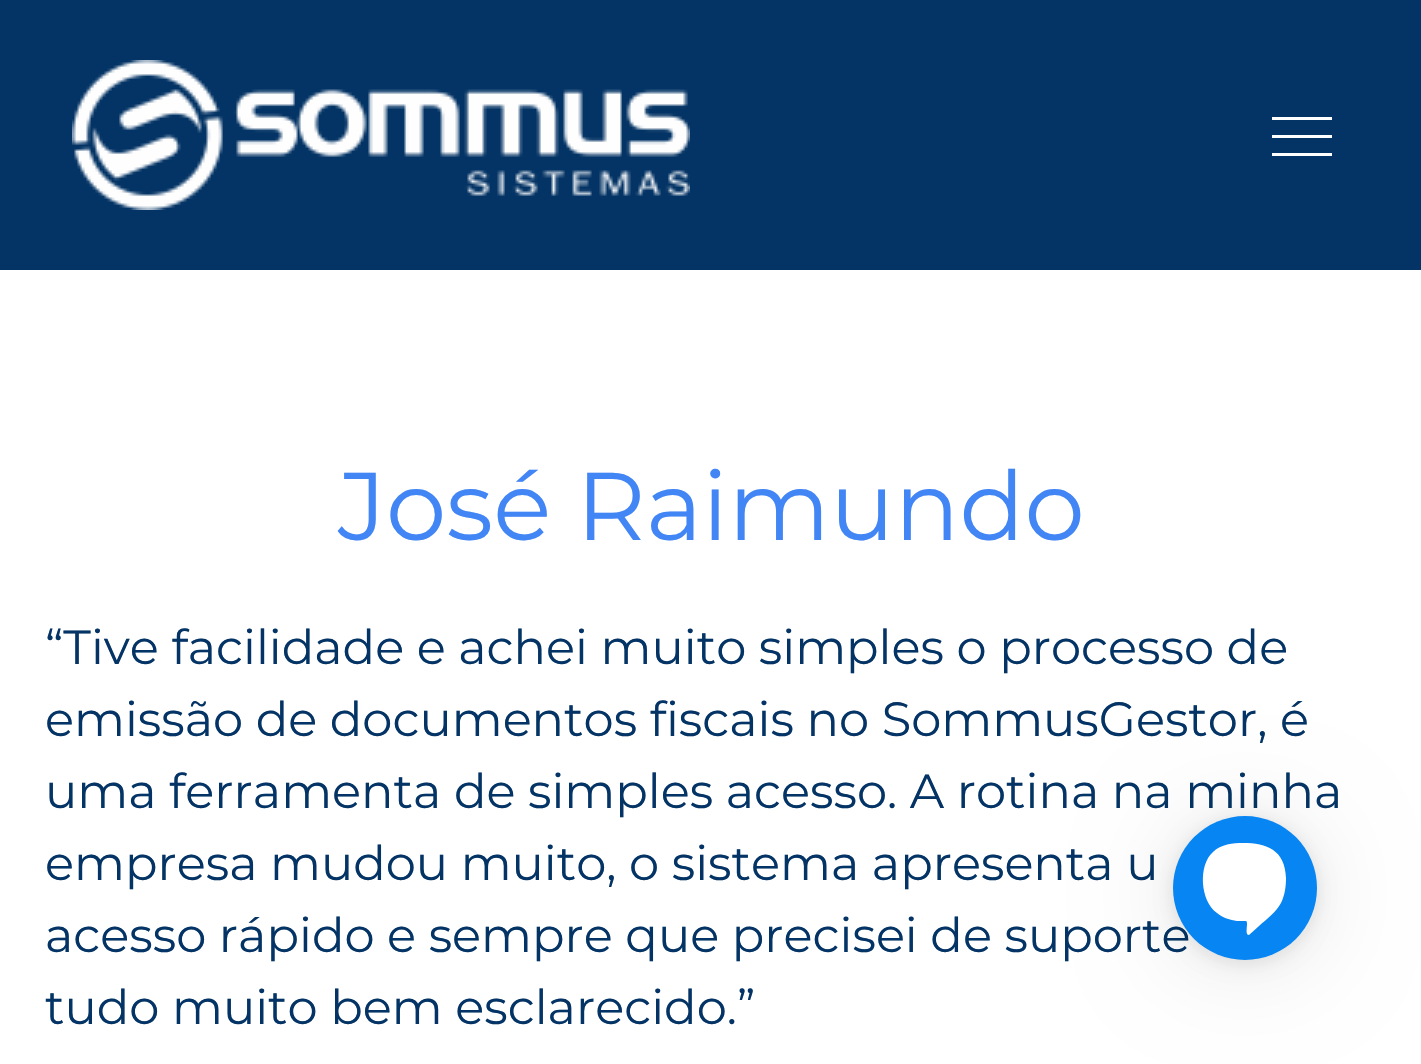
#include "include/core/SkBlurTypes.h"
#include "include/core/SkCanvas.h"
#include "include/core/SkData.h"
#include "include/core/SkFont.h"
#include "include/core/SkFontMgr.h"
#include "include/core/SkImage.h"
#include "include/core/SkMaskFilter.h"
#include "include/core/SkPaint.h"
#include "include/core/SkPathBuilder.h"
#include "include/core/SkTextBlob.h"
#include "include/effects/SkDashPathEffect.h"
#include "include/effects/SkGradientShader.h"
#include "include/utils/SkParsePath.h"

extern sk_sp<SkFontMgr> fontMgr;

void draw(SkCanvas* canvas) {
    SkPaint p;
    p.setAntiAlias(true);
    auto font = [&](const char* family, int weight, float size, bool italic = false) {
        SkFontStyle style(weight, SkFontStyle::kNormal_Width,
            italic ? SkFontStyle::kItalic_Slant : SkFontStyle::kUpright_Slant);
        SkFont result(fontMgr->matchFamilyStyle(family, style), size);
        result.setSubpixel(true);
        return result;
    };
    auto drawPhoto = [&](const char* path, float l, float t, float r, float b) {
        auto image = SkImages::DeferredFromEncodedData(SkData::MakeFromFileName(path));
        canvas->drawImageRect(image, SkRect::MakeLTRB(l, t, r, b), SkSamplingOptions());
    };
    canvas->clear(0xFFFFFFFF);
    p.setColor(0xFF043465);
    canvas->drawRect(SkRect::MakeLTRB(0, 0, 1421, 270), p);
    drawPhoto("media/1.png", 72, 60, 690, 210);
    {
        const struct { float l, t, r, b; SkColor color; } items[] = {
            {1272, 117, 1332, 120, 0xFFFFFFFF},
            {1272, 135, 1332, 138, 0xFFFFFFFF},
            {1272, 153, 1332, 156, 0xFFFFFFFF},
        };
        for (auto [l, t, r, b, color] : items) {
            p.setColor(color);
            canvas->drawRect(SkRect::MakeLTRB(l, t, r, b), p);
        }
    }
    auto font1 = font("Montserrat", 400, 96);
    p.setColor(0xFF4285F4);
    canvas->drawString("José Raimundo", 338, 540, font1, p);
    auto font2 = font("Montserrat", 400, 48);
    p.setColor(0xFF043465);
    {
        const struct { const char* s; float x, y; } items[] = {
            {"“Tive facilidade e achei muito simples o processo de", 45, 664},
            {"emissão de documentos fiscais no SommusGestor, é", 45, 736},
            {"uma ferramenta de simples acesso. A rotina na minha", 45, 808},
            {"empresa mudou muito, o sistema apresenta u", 45, 880},
            {"acesso rápido e sempre que precisei de suporte", 45, 952},
            {"tudo muito bem esclarecido.”", 45, 1024},
        };
        for (auto [s, x, y] : items) {
            canvas->drawString(s, x, y, font2, p);
        }
    }
    p.setColor(0x1A000000);
    p.setMaskFilter(SkMaskFilter::MakeBlur(kNormal_SkBlurStyle, 48));
    canvas->drawRoundRect(SkRect::MakeLTRB(1173, 822, 1317, 966), 72, 72, p);
    p.setMaskFilter(nullptr);
    p.setMaskFilter(SkMaskFilter::MakeBlur(kNormal_SkBlurStyle, 9));
    canvas->drawRoundRect(SkRect::MakeLTRB(1173, 819, 1317, 963), 72, 72, p);
    p.setMaskFilter(nullptr);
    p.setColor(0xFF0785F2);
    canvas->drawCircle(1245, 888, 72, p);
    p.setColor(0xFFFFFFFF);
    canvas->drawPath(SkPathBuilder().moveTo(1243, 843).cubicTo(1233, 843, 1221, 844, 1213, 852).cubicTo(1198, 865, 1200, 901, 1217, 913).cubicTo(1223, 918, 1230, 920, 1237, 921).lineTo(1246, 921).cubicTo(1249, 922, 1244, 935, 1249, 935).lineTo(1259, 926).cubicTo(1267, 919, 1276, 912, 1281, 903).cubicTo(1285, 895, 1286, 886, 1286, 878).cubicTo(1285, 850, 1267, 843, 1243, 843).close().detach(), p);
}
